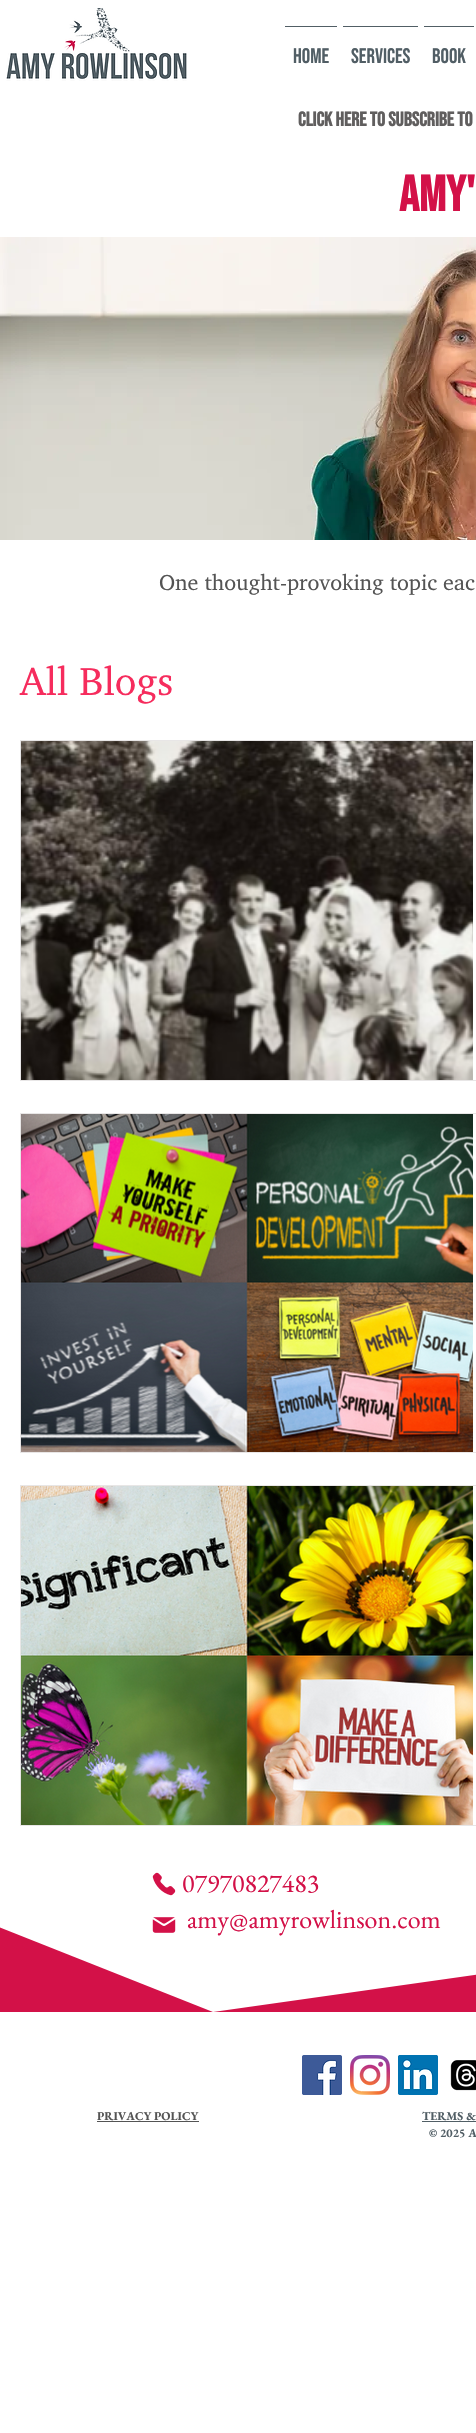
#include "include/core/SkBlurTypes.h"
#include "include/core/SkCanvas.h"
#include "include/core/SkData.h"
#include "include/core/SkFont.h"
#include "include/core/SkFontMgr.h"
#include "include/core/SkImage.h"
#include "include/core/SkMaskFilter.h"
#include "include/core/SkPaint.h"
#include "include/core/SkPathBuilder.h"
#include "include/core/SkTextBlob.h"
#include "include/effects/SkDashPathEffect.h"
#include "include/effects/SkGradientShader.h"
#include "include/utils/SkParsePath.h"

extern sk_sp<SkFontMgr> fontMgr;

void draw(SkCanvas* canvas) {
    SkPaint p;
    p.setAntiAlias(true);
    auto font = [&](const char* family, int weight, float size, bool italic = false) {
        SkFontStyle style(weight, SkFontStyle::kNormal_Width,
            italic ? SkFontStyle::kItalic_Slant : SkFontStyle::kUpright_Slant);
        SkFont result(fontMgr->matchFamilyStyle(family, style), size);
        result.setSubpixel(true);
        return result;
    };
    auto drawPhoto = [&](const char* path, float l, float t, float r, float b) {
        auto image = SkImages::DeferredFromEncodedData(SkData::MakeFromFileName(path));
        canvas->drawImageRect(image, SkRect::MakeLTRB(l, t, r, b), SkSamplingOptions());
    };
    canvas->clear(0xFFFFFFFF);
    drawPhoto("media/1.png", 6, 8, 187, 81);
    p.setColor(0xFF515E65);
    canvas->drawRect(SkRect::MakeLTRB(285, 26, 337, 27), p);
    auto font1 = font("Bebas Neue", 400, 21);
    canvas->drawString("HOME", 293, 63, font1, p);
    canvas->drawRect(SkRect::MakeLTRB(343, 26, 418, 27), p);
    canvas->drawString("Services", 351, 63, font1, p);
    canvas->drawRect(SkRect::MakeLTRB(424, 26, 474, 27), p);
    canvas->drawString("Book", 432, 63, font1, p);
    auto font2 = font("Bebas Neue", 700, 20);
    p.setColor(0xFF605E5E);
    canvas->drawString("Click here to subscribe to", 298, 126, font2, p);
    auto font3 = font("Bebas Neue", 700, 50);
    p.setColor(0xFFD31148);
    canvas->drawString("AMY'", 399, 211, font3, p);
    drawPhoto("media/2.png", 0, 237, 476, 540);
    auto font4 = font("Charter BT", 400, 22);
    p.setColor(0xFF545454);
    canvas->drawString("One thought-provoking topic eac", 159, 590, font4, p);
    auto font5 = font("Charter BT", 400, 40);
    p.setColor(0xFFF62C5D);
    canvas->drawString("All Blogs", 20, 695, font5, p);
    p.setStyle(SkPaint::kStroke_Style);
    p.setStrokeWidth(1);
    p.setColor(0xFFE8E6E6);
    canvas->drawRect(SkRect::MakeLTRB(20.5f, 740.5f, 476.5f, 1080.5f), p);
    drawPhoto("media/4.png", 472, 741, 473, 1080);
    drawPhoto("media/3.png", 21, 741, 473, 1080);
    canvas->drawRect(SkRect::MakeLTRB(20.5f, 1113.5f, 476.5f, 1452.5f), p);
    drawPhoto("media/5.png", 21, 1114, 473, 1452);
    canvas->drawRect(SkRect::MakeLTRB(20.5f, 1485.5f, 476.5f, 1825.5f), p);
    drawPhoto("media/6.png", 21, 1486, 473, 1825);
    drawPhoto("media/7.png", 152, 1872, 176, 1896);
    auto font6 = font("EB Garamond", 400, 26);
    p.setStyle(SkPaint::kFill_Style);
    p.setColor(0xFFD31148);
    canvas->drawString("07970827483", 182, 1892, font6, p);
    canvas->drawPath(SkPathBuilder().moveTo(-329, 1797).lineTo(213, 2012).lineTo(-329, 2012).close().detach(), p);
    canvas->drawString("amy@amyrowlinson.com", 187, 1928, font6, p);
    drawPhoto("media/8.png", 152, 1917, 176, 1933);
    canvas->drawPath(SkPathBuilder().moveTo(213, 2012).lineTo(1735, 1797).lineTo(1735, 2012).close().detach(), p);
    drawPhoto("media/9.png", 302, 2055, 342, 2095);
    drawPhoto("media/10.png", 350, 2055, 390, 2095);
    drawPhoto("media/11.png", 398, 2055, 438, 2095);
    drawPhoto("media/12.png", 450, 2060, 476, 2091);
    auto font7 = font("EB Garamond", 700, 12);
    p.setColor(0xFF545454);
    canvas->drawString("PRIVACY POLICY", 97, 2120, font7, p);
    canvas->drawRect(SkRect::MakeLTRB(97, 2121, 199, 2122), p);
    p.setColor(0xFF515E65);
    canvas->drawString("TERMS &", 422, 2120, font7, p);
    canvas->drawRect(SkRect::MakeLTRB(422, 2121, 476, 2122), p);
    canvas->drawString("© 2025 A", 429, 2137, font7, p);
}
